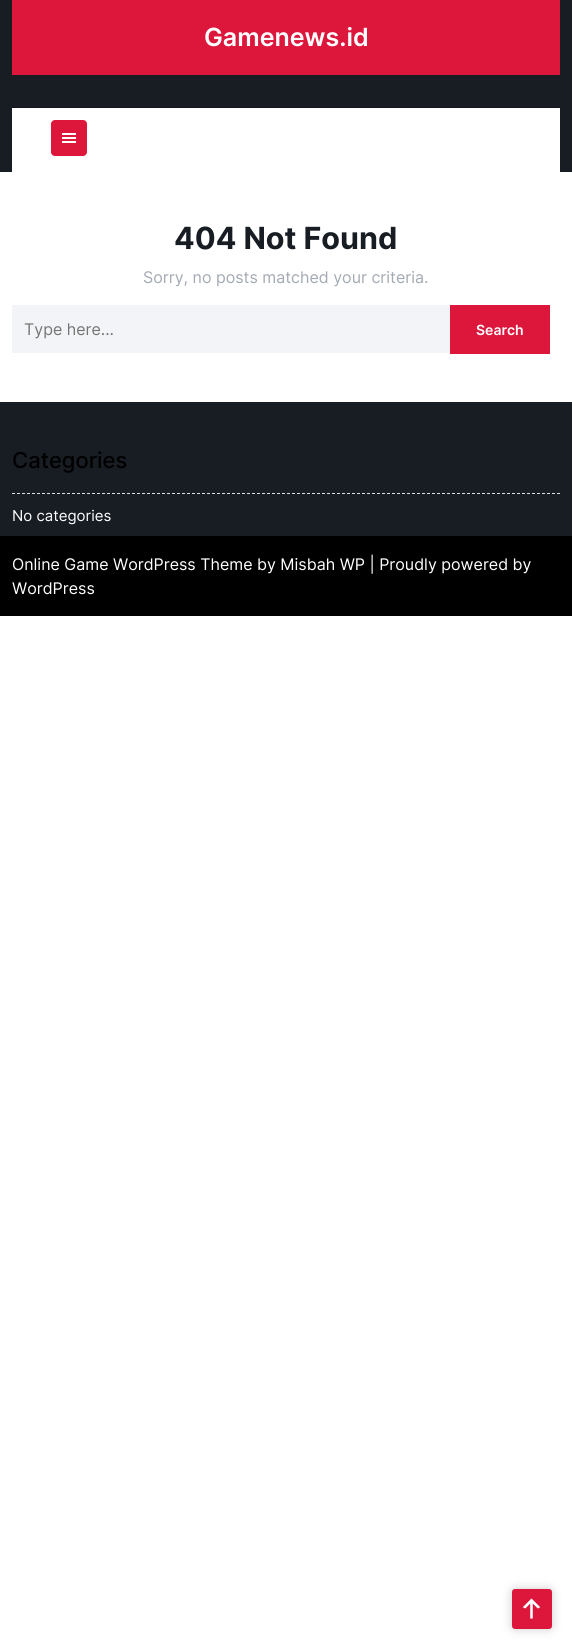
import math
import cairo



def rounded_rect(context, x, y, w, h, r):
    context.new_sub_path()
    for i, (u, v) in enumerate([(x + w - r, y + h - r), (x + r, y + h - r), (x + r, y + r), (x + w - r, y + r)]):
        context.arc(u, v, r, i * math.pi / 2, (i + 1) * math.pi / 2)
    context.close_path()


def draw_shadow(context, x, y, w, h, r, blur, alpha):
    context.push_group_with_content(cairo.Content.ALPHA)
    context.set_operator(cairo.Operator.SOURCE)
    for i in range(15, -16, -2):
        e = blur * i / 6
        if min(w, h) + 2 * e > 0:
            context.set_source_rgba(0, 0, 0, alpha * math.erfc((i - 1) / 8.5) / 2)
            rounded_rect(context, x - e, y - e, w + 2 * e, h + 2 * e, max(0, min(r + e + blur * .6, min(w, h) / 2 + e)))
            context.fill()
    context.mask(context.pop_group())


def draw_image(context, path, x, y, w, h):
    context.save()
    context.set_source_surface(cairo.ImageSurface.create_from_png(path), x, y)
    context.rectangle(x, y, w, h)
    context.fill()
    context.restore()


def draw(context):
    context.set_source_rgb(1, 1, 1)
    context.paint()
    context.set_source_rgb(24 / 255, 28 / 255, 35 / 255)
    context.rectangle(0, 0, 572, 172)
    context.fill()
    context.set_source_rgb(221 / 255, 22 / 255, 59 / 255)
    context.rectangle(12, 0, 548, 75)
    context.fill()
    context.set_source_rgb(21 / 255, 21 / 255, 31 / 255)
    context.rectangle(12, 107, 548, 1)
    context.fill()
    context.set_source_rgb(1, 1, 1)
    context.rectangle(12, 108, 548, 64)
    context.fill()
    context.set_source_rgb(221 / 255, 22 / 255, 59 / 255)
    rounded_rect(context, 51, 120, 36, 36, 4)
    context.fill()
    draw_image(context, "images/1.png", 62, 133, 14, 10)
    context.set_source_rgb(243 / 255, 244 / 255, 247 / 255)
    context.rectangle(12, 305, 438, 48)
    context.fill()
    context.set_source_rgb(221 / 255, 22 / 255, 59 / 255)
    context.rectangle(450, 305, 100, 49)
    context.fill()
    context.set_source_rgb(24 / 255, 28 / 255, 35 / 255)
    context.rectangle(0, 402, 572, 134)
    context.fill()
    context.new_path()
    context.move_to(12, 493.5)
    context.line_to(560, 493.5)
    context.set_source_rgb(223 / 255, 224 / 255, 228 / 255)
    context.set_line_width(1)
    context.set_dash([3, 2])
    context.stroke()
    context.set_source_rgb(0, 0, 0)
    context.rectangle(0, 536, 572, 80)
    context.fill()
    context.set_source_rgb(0, 0, 0)
    draw_shadow(context, 512, 1589, 40, 40, 3, 5, 0.2)
    context.set_source_rgb(221 / 255, 22 / 255, 59 / 255)
    rounded_rect(context, 512, 1589, 40, 40, 3)
    context.fill()
    draw_image(context, "images/2.png", 522, 1598, 19, 21)
    context.select_font_face("Inter SemiBold")
    context.set_font_size(25)
    context.set_source_rgb(1, 1, 1)
    context.move_to(204, 46)
    context.show_text("Gamenews.id")
    context.select_font_face("Inter", cairo.FontSlant.NORMAL, cairo.FontWeight.BOLD)
    context.set_font_size(30.5)
    context.set_source_rgb(24 / 255, 28 / 255, 35 / 255)
    context.move_to(174, 249)
    context.show_text("404 Not Found")
    context.select_font_face("Inter")
    context.set_font_size(16)
    context.set_source_rgb(163 / 255, 170 / 255, 180 / 255)
    context.move_to(143, 283)
    context.show_text("Sorry, no posts matched your criteria.")
    context.set_source_rgb(117 / 255, 117 / 255, 117 / 255)
    context.move_to(24, 335)
    context.show_text("Type here...")
    context.select_font_face("Inter SemiBold")
    context.set_font_size(14)
    context.set_source_rgb(1, 1, 1)
    context.move_to(476, 335)
    context.show_text("Search")
    context.select_font_face("Inter Medium")
    context.set_font_size(22)
    context.set_source_rgb(0, 0, 0)
    context.move_to(12, 468)
    context.show_text("Categories")
    context.select_font_face("Inter")
    context.set_font_size(15)
    context.set_source_rgb(1, 1, 1)
    context.move_to(12, 521)
    context.show_text("No categories")
    context.set_font_size(16)
    context.move_to(12, 570)
    context.show_text("Online Game WordPress Theme by Misbah WP | Proudly powered by")
    context.move_to(12, 594)
    context.show_text("WordPress")


surface = cairo.ImageSurface(cairo.Format.RGB24, 572, 1641)
context = cairo.Context(surface)
options = cairo.FontOptions()
options.set_hint_metrics(cairo.HintMetrics.OFF)
options.set_hint_style(cairo.HintStyle.NONE)
context.set_font_options(options)
context.set_miter_limit(4)
draw(context)
surface.write_to_png("out.png")
